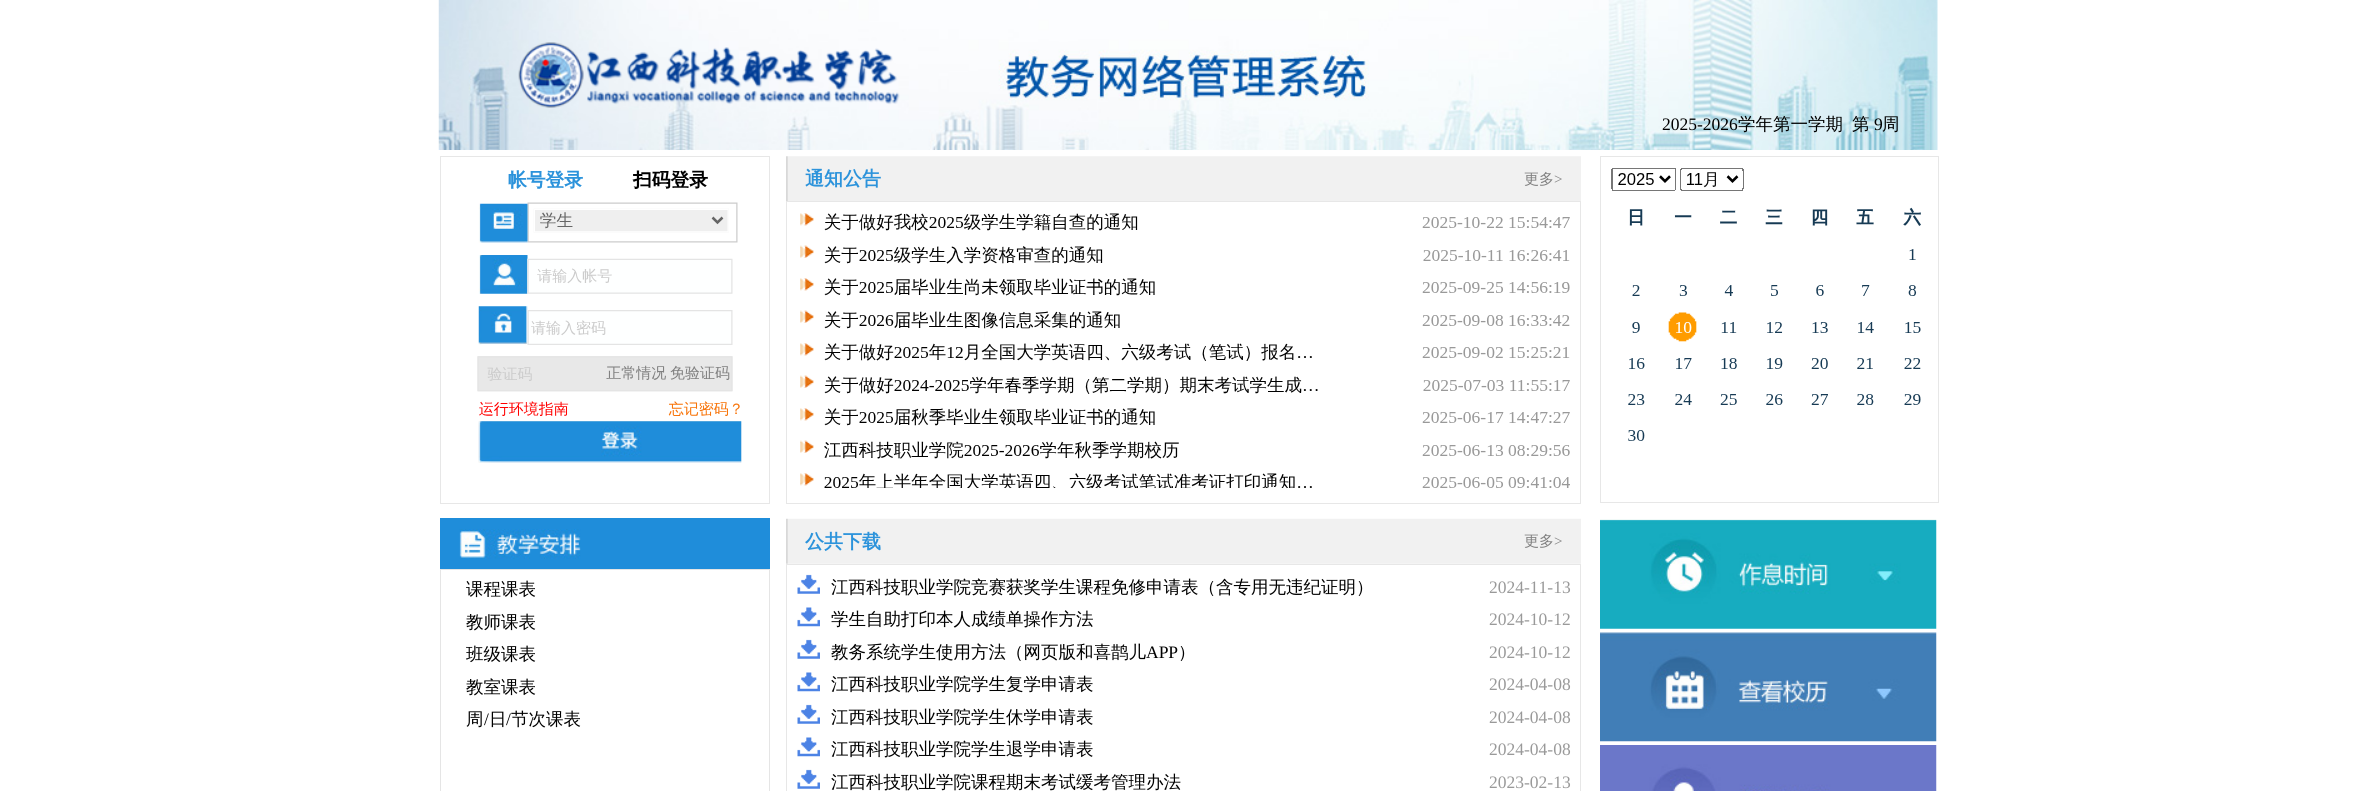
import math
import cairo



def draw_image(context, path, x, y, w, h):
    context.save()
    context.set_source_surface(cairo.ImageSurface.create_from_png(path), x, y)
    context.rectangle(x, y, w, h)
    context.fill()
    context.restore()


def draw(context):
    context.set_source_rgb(1, 1, 1)
    context.paint()
    draw_image(context, "images/1.png", 438, 0, 1500, 150)
    draw_image(context, "images/2.png", 518, 42, 382, 66)
    context.rectangle(440.5, 156.5, 329, 347)
    context.set_source_rgb(231 / 255, 231 / 255, 231 / 255)
    context.set_line_width(1)
    context.stroke()
    draw_image(context, "images/3.png", 477, 170, 265, 293)
    context.set_source_rgb(31 / 255, 141 / 255, 218 / 255)
    context.rectangle(440, 518, 330, 51)
    context.fill()
    draw_image(context, "images/4.png", 459, 529, 122, 30)
    context.rectangle(440.5, 569.5, 329, 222)
    context.set_source_rgb(229 / 255, 229 / 255, 229 / 255)
    context.stroke()
    draw_image(context, "images/5.png", 786, 156, 795, 45)
    context.rectangle(786.5, 201.5, 794, 302)
    context.set_source_rgb(231 / 255, 231 / 255, 231 / 255)
    context.stroke()
    draw_image(context, "images/6.png", 800, 213, 770, 275)
    draw_image(context, "images/7.png", 786, 518, 795, 46)
    context.rectangle(786.5, 564.5, 794, 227)
    context.stroke()
    draw_image(context, "images/8.png", 797, 574, 23, 20)
    draw_image(context, "images/9.png", 797, 607, 23, 20)
    draw_image(context, "images/8.png", 797, 639, 23, 20)
    draw_image(context, "images/9.png", 797, 672, 23, 20)
    draw_image(context, "images/8.png", 797, 704, 23, 20)
    draw_image(context, "images/9.png", 797, 737, 23, 20)
    draw_image(context, "images/8.png", 797, 769, 23, 20)
    context.rectangle(1600.5, 156.5, 338, 346)
    context.stroke()
    draw_image(context, "images/10.png", 1611, 168, 310, 273)
    draw_image(context, "images/11.png", 1600, 519, 337, 110)
    draw_image(context, "images/12.png", 1600, 632, 337, 110)
    draw_image(context, "images/13.png", 1600, 745, 337, 46)
    context.select_font_face("Liberation Serif")
    context.set_font_size(17.5)
    context.set_source_rgb(0, 0, 0)
    context.move_to(1662, 130)
    context.show_text("2025-2026")
    context.select_font_face("WenQuanYi Zen Hei Medium")
    context.move_to(1738, 130)
    context.show_text("学年第一学期")
    context.move_to(1852, 130)
    context.show_text("第")
    context.select_font_face("Liberation Serif")
    context.move_to(1874, 130)
    context.show_text("9")
    context.select_font_face("WenQuanYi Zen Hei Medium")
    context.move_to(1882, 130)
    context.show_text("周")
    context.move_to(466, 595)
    context.show_text("课程课表")
    context.move_to(466, 628)
    context.show_text("教师课表")
    context.move_to(466, 660)
    context.show_text("班级课表")
    context.move_to(466, 693)
    context.show_text("教室课表")
    context.move_to(466, 725)
    context.show_text("周")
    context.select_font_face("Liberation Serif")
    context.move_to(484, 725)
    context.show_text("/")
    context.select_font_face("WenQuanYi Zen Hei Medium")
    context.move_to(489, 725)
    context.show_text("日")
    context.select_font_face("Liberation Serif")
    context.move_to(506, 725)
    context.show_text("/")
    context.select_font_face("WenQuanYi Zen Hei Medium")
    context.move_to(511, 725)
    context.show_text("节次课表")
    context.select_font_face("WenQuanYi Zen Hei", cairo.FontSlant.NORMAL, cairo.FontWeight.BOLD)
    context.set_font_size(19)
    context.set_source_rgb(44 / 255, 147 / 255, 219 / 255)
    context.move_to(805, 185)
    context.show_text("通知公告")
    context.select_font_face("WenQuanYi Zen Hei Medium")
    context.set_font_size(15)
    context.set_source_rgb(128 / 255, 128 / 255, 128 / 255)
    context.move_to(1524, 184)
    context.show_text("更多")
    context.select_font_face("Liberation Serif")
    context.move_to(1554, 184)
    context.show_text(">")
    context.select_font_face("WenQuanYi Zen Hei", cairo.FontSlant.NORMAL, cairo.FontWeight.BOLD)
    context.set_font_size(19)
    context.set_source_rgb(44 / 255, 147 / 255, 219 / 255)
    context.move_to(805, 548)
    context.show_text("公共下载")
    context.select_font_face("WenQuanYi Zen Hei Medium")
    context.set_font_size(15)
    context.set_source_rgb(128 / 255, 128 / 255, 128 / 255)
    context.move_to(1524, 546)
    context.show_text("更多")
    context.select_font_face("Liberation Serif")
    context.move_to(1554, 546)
    context.show_text(">")
    context.select_font_face("WenQuanYi Zen Hei Medium")
    context.set_font_size(17.5)
    context.set_source_rgb(0, 0, 0)
    context.move_to(831, 593)
    context.show_text("江西科技职业学院竞赛获奖学生课程免修申请表（含专用无违纪证明）")
    context.select_font_face("Liberation Serif")
    context.set_source_rgb(153 / 255, 153 / 255, 153 / 255)
    context.move_to(1489, 593)
    context.show_text("2024-11-13")
    context.select_font_face("WenQuanYi Zen Hei Medium")
    context.set_source_rgb(0, 0, 0)
    context.move_to(831, 625)
    context.show_text("学生自助打印本人成绩单操作方法")
    context.select_font_face("Liberation Serif")
    context.set_source_rgb(153 / 255, 153 / 255, 153 / 255)
    context.move_to(1489, 625)
    context.show_text("2024-10-12")
    context.select_font_face("WenQuanYi Zen Hei Medium")
    context.set_source_rgb(0, 0, 0)
    context.move_to(831, 658)
    context.show_text("教务系统学生使用方法（网页版和喜鹊儿")
    context.select_font_face("Liberation Serif")
    context.move_to(1146, 658)
    context.show_text("APP")
    context.select_font_face("WenQuanYi Zen Hei Medium")
    context.move_to(1178, 658)
    context.show_text("）")
    context.select_font_face("Liberation Serif")
    context.set_source_rgb(153 / 255, 153 / 255, 153 / 255)
    context.move_to(1489, 658)
    context.show_text("2024-10-12")
    context.select_font_face("WenQuanYi Zen Hei Medium")
    context.set_source_rgb(0, 0, 0)
    context.move_to(831, 690)
    context.show_text("江西科技职业学院学生复学申请表")
    context.select_font_face("Liberation Serif")
    context.set_source_rgb(153 / 255, 153 / 255, 153 / 255)
    context.move_to(1489, 690)
    context.show_text("2024-04-08")
    context.select_font_face("WenQuanYi Zen Hei Medium")
    context.set_source_rgb(0, 0, 0)
    context.move_to(831, 723)
    context.show_text("江西科技职业学院学生休学申请表")
    context.select_font_face("Liberation Serif")
    context.set_source_rgb(153 / 255, 153 / 255, 153 / 255)
    context.move_to(1489, 723)
    context.show_text("2024-04-08")
    context.select_font_face("WenQuanYi Zen Hei Medium")
    context.set_source_rgb(0, 0, 0)
    context.move_to(831, 755)
    context.show_text("江西科技职业学院学生退学申请表")
    context.select_font_face("Liberation Serif")
    context.set_source_rgb(153 / 255, 153 / 255, 153 / 255)
    context.move_to(1489, 755)
    context.show_text("2024-04-08")
    context.select_font_face("WenQuanYi Zen Hei Medium")
    context.set_source_rgb(0, 0, 0)
    context.move_to(831, 788)
    context.show_text("江西科技职业学院课程期末考试缓考管理办法")
    context.select_font_face("Liberation Serif")
    context.set_source_rgb(153 / 255, 153 / 255, 153 / 255)
    context.move_to(1489, 788)
    context.show_text("2023-02-13")


surface = cairo.ImageSurface(cairo.Format.RGB24, 2376, 791)
context = cairo.Context(surface)
options = cairo.FontOptions()
options.set_hint_metrics(cairo.HintMetrics.OFF)
options.set_hint_style(cairo.HintStyle.NONE)
context.set_font_options(options)
context.set_miter_limit(4)
draw(context)
surface.write_to_png("out.png")
